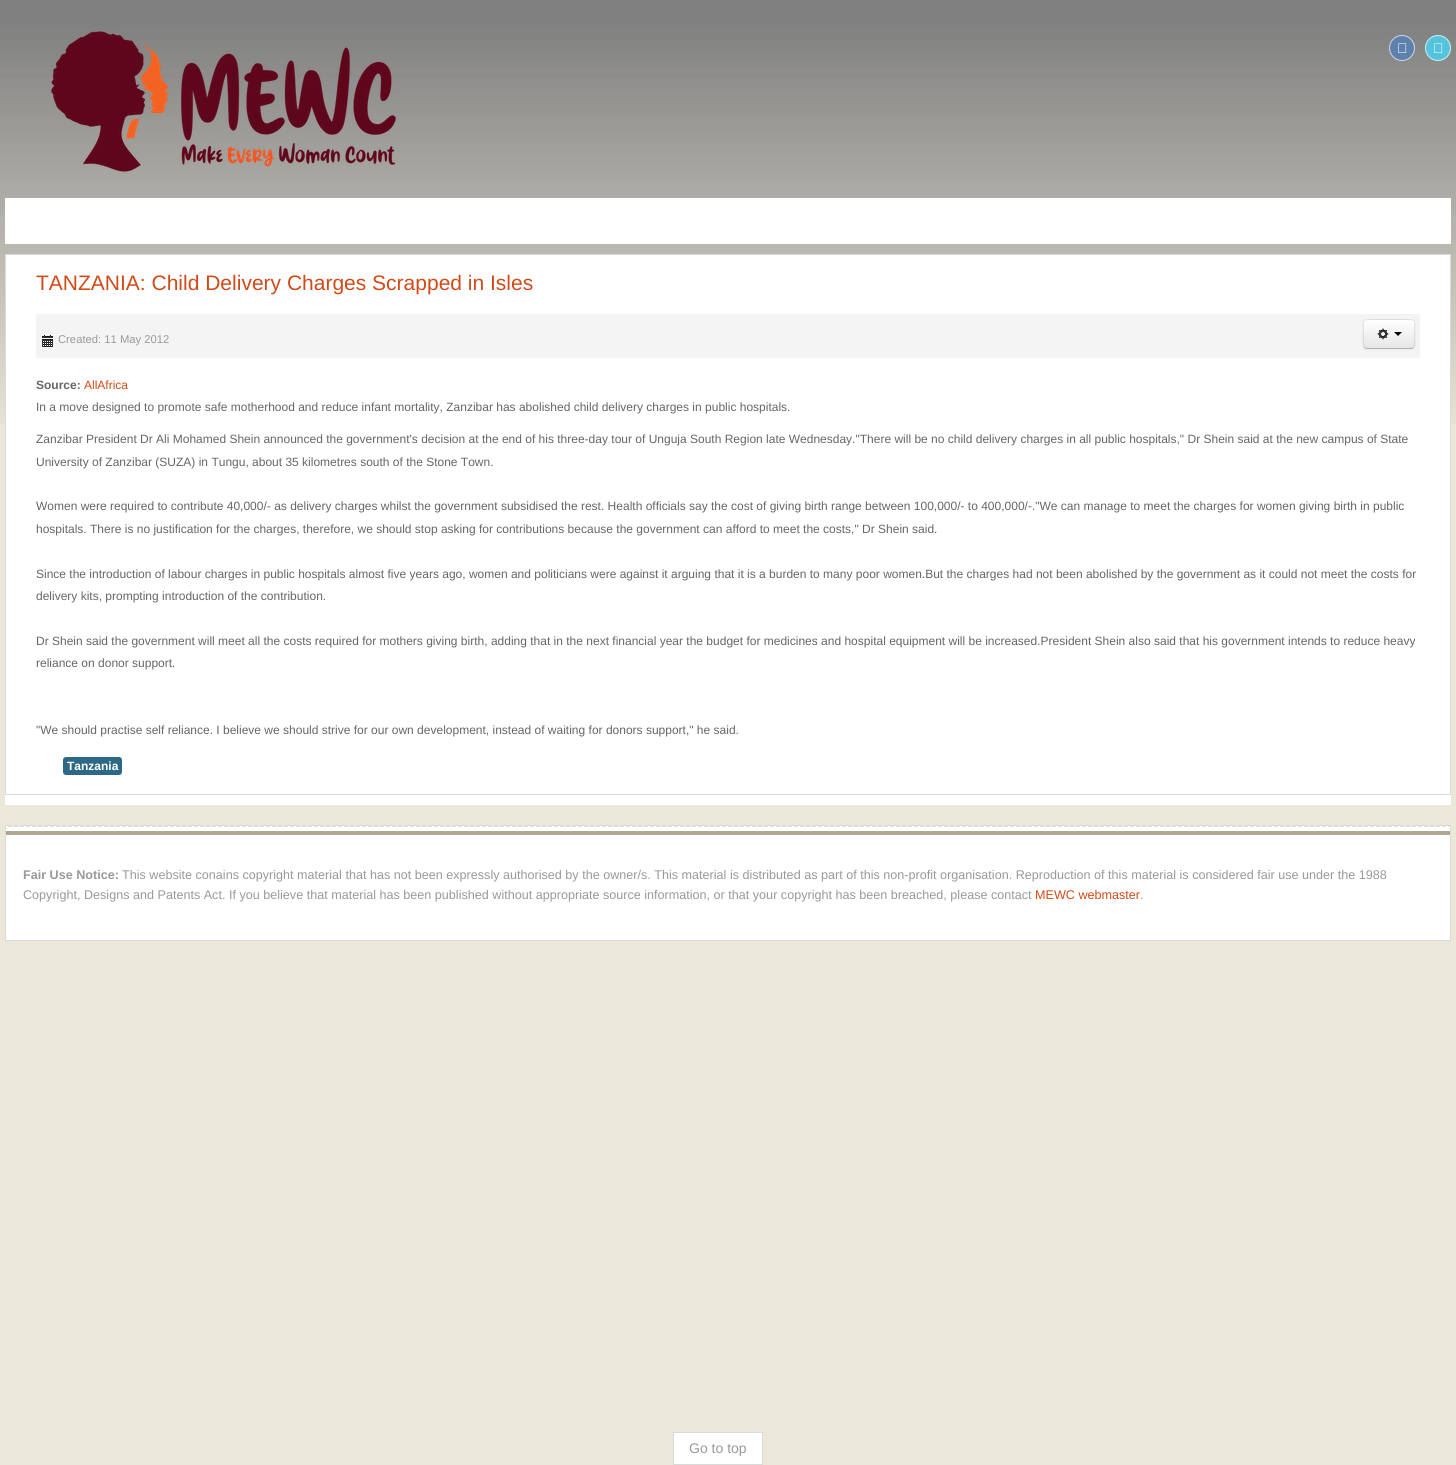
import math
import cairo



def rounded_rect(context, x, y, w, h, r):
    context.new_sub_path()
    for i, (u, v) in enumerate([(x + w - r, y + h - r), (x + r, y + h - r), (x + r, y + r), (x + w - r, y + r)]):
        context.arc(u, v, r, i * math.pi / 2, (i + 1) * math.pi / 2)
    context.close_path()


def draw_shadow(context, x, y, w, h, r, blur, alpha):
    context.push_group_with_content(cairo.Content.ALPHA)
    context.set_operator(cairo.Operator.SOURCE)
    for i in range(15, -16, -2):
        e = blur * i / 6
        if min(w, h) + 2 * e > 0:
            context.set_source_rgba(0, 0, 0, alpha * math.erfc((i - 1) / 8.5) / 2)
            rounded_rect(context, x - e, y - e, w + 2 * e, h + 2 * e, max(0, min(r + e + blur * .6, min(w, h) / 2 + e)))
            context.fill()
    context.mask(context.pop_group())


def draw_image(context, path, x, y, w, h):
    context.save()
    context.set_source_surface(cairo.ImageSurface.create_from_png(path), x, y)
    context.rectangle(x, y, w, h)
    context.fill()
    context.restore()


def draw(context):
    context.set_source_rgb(235 / 255, 232 / 255, 217 / 255)
    context.paint()
    draw_image(context, "images/1.png", 0, 0, 1456, 424)
    draw_image(context, "images/2.png", 51, 31, 347, 143)
    context.set_source_rgb(93 / 255, 128 / 255, 172 / 255)
    context.arc(1402, 48, 13, 0, 2 * math.pi)
    context.fill()
    context.arc(1402, 48, 12.5, 0, 2 * math.pi)
    context.set_source_rgba(1, 1, 1, 0.7)
    context.set_line_width(1)
    context.stroke()
    draw_image(context, "images/3.png", 1398, 43, 9, 10)
    context.set_source_rgb(85 / 255, 195 / 255, 219 / 255)
    context.arc(1438, 48, 13, 0, 2 * math.pi)
    context.fill()
    context.arc(1438, 48, 12.5, 0, 2 * math.pi)
    context.set_source_rgba(1, 1, 1, 0.7)
    context.stroke()
    draw_image(context, "images/4.png", 1434, 43, 9, 10)
    context.set_source_rgb(1, 1, 1)
    context.rectangle(5, 198, 1446, 46)
    context.fill()
    context.rectangle(5, 255, 1446, 550)
    context.fill()
    context.rectangle(5.5, 254.5, 1445, 540)
    context.set_source_rgb(218 / 255, 218 / 255, 218 / 255)
    context.stroke()
    context.set_source_rgb(244 / 255, 244 / 255, 244 / 255)
    context.rectangle(36, 314, 1384, 44)
    context.fill()
    draw_image(context, "images/5.png", 42, 335, 11, 12)
    context.set_source_rgb(0, 0, 0)
    draw_shadow(context, 1363, 320, 52, 30, 4, 1, 0.05)
    context.set_source_rgb(245 / 255, 245 / 255, 245 / 255)
    rounded_rect(context, 1363, 319, 52, 30, 4)
    context.fill()
    context.save()
    rounded_rect(context, 1363, 319, 52, 30, 4)
    context.clip()
    gradient = cairo.LinearGradient(1389, 320, 1389, 348)
    gradient.add_color_stop_rgba(0, 1, 1, 1, 1)
    gradient.add_color_stop_rgba(1, 230 / 255, 230 / 255, 230 / 255, 1)
    context.set_source(gradient)
    context.rectangle(1363, 320, 52, 28)
    context.fill()
    context.restore()
    context.set_source_rgb(1, 1, 1)
    context.new_path()
    context.move_to(1367, 321)
    context.line_to(1411, 321)
    context.curve_to(1413, 321, 1414, 322, 1414, 324)
    context.curve_to(1414, 318, 1408, 320, 1404, 320)
    context.line_to(1374, 320)
    context.curve_to(1370, 320, 1364, 318, 1364, 324)
    context.curve_to(1364, 322, 1365, 321, 1367, 321)
    context.close_path()
    context.fill()
    context.new_path()
    context.move_to(1413.5, 347.5)
    context.curve_to(1413, 348, 1412, 348.5, 1411, 348.5)
    context.line_to(1367, 348.5)
    context.curve_to(1366, 348.5, 1365, 348, 1364.5, 347.5)
    context.set_source_rgb(179 / 255, 179 / 255, 179 / 255)
    context.stroke()
    context.new_path()
    context.move_to(1364.5, 347.5)
    context.curve_to(1362.5, 345.5, 1363.5, 337, 1363.5, 334)
    context.curve_to(1363.5, 319.5, 1360.5, 319.5, 1374.5, 319.5)
    context.line_to(1403.5, 319.5)
    context.curve_to(1417.5, 319.5, 1414.5, 319.5, 1414.5, 334)
    context.curve_to(1414.5, 337, 1415.5, 345.5, 1413.5, 347.5)
    context.set_source_rgba(0, 0, 0, 0.1)
    context.stroke()
    draw_image(context, "images/6.png", 1377, 328, 12, 12)
    context.set_source_rgb(0, 0, 0)
    context.new_path()
    context.move_to(1394, 332)
    context.line_to(1402, 332)
    context.line_to(1398, 336)
    context.close_path()
    context.fill()
    context.set_source_rgb(45 / 255, 105 / 255, 135 / 255)
    rounded_rect(context, 63, 757, 59, 18, 3)
    context.fill()
    context.set_source_rgb(1, 1, 1)
    context.rectangle(6, 827, 1444, 113)
    context.fill()
    draw_image(context, "images/7.png", 6, 826, 1444, 1)
    context.rectangle(5.5, 825.5, 1445, 115)
    context.set_source_rgb(218 / 255, 218 / 255, 218 / 255)
    context.stroke()
    context.set_source_rgb(176 / 255, 168 / 255, 142 / 255)
    context.rectangle(6, 831, 1444, 4)
    context.fill()
    context.set_source_rgb(1, 1, 1)
    context.rectangle(673.5, 1432.5, 89, 32)
    context.fill_preserve()
    context.set_source_rgb(218 / 255, 218 / 255, 218 / 255)
    context.stroke()
    context.select_font_face("Liberation Sans")
    context.set_font_size(21)
    context.set_source_rgb(210 / 255, 74 / 255, 23 / 255)
    context.move_to(36, 290)
    context.show_text("TANZANIA: Child Delivery Charges Scrapped in Isles")
    context.set_font_size(11.25)
    context.set_source_rgb(153 / 255, 153 / 255, 153 / 255)
    context.move_to(58, 343)
    context.show_text("Created: 11 May 2012")
    context.select_font_face("Liberation Sans", cairo.FontSlant.NORMAL, cairo.FontWeight.BOLD)
    context.set_font_size(12)
    context.set_source_rgb(102 / 255, 102 / 255, 102 / 255)
    context.move_to(36, 389)
    context.show_text("Source:")
    context.select_font_face("Liberation Sans")
    context.set_source_rgb(210 / 255, 74 / 255, 23 / 255)
    context.move_to(84, 389)
    context.show_text("AllAfrica")
    context.set_source_rgb(102 / 255, 102 / 255, 102 / 255)
    context.move_to(36, 411)
    context.show_text("In a move designed to promote safe motherhood and reduce infant mortality, Zanzibar has abolished child delivery charges in public hospitals.")
    context.move_to(36, 443)
    context.show_text("Zanzibar President Dr Ali Mohamed Shein announced the government's decision at the end of his three-day tour of Unguja South Region late Wednesday.\"There will be no child delivery charges in all public hospitals,\" Dr Shein said at the new campus of State")
    context.move_to(36, 466)
    context.show_text("University of Zanzibar (SUZA) in Tungu, about 35 kilometres south of the Stone Town.")
    context.move_to(36, 510)
    context.show_text("Women were required to contribute 40,000/- as delivery charges whilst the government subsidised the rest. Health officials say the cost of giving birth range between 100,000/- to 400,000/-.\"We can manage to meet the charges for women giving birth in public")
    context.move_to(36, 533)
    context.show_text("hospitals. There is no justification for the charges, therefore, we should stop asking for contributions because the government can afford to meet the costs,\" Dr Shein said.")
    context.move_to(36, 578)
    context.show_text("Since the introduction of labour charges in public hospitals almost five years ago, women and politicians were against it arguing that it is a burden to many poor women.But the charges had not been abolished by the government as it could not meet the costs for")
    context.move_to(36, 600)
    context.show_text("delivery kits, prompting introduction of the contribution.")
    context.move_to(36, 645)
    context.show_text("Dr Shein said the government will meet all the costs required for mothers giving birth, adding that in the next financial year the budget for medicines and hospital equipment will be increased.President Shein also said that his government intends to reduce heavy")
    context.move_to(36, 667)
    context.show_text("reliance on donor support.")
    context.move_to(36, 734)
    context.show_text("\"We should practise self reliance. I believe we should strive for our own development, instead of waiting for donors support,\" he said.")
    context.select_font_face("Liberation Sans", cairo.FontSlant.NORMAL, cairo.FontWeight.BOLD)
    context.set_source_rgb(1, 1, 1)
    context.move_to(67, 770)
    context.show_text("Tanzania")
    context.set_font_size(12.6)
    context.set_source_rgb(153 / 255, 153 / 255, 153 / 255)
    context.move_to(23, 879)
    context.show_text("Fair Use Notice:")
    context.select_font_face("Liberation Sans")
    context.move_to(122, 879)
    context.show_text("This website conains copyright material that has not been expressly authorised by the owner/s. This material is distributed as part of this non-profit organisation. Reproduction of this material is considered fair use under the 1988")
    context.move_to(23, 899)
    context.show_text("Copyright, Designs and Patents Act. If you believe that material has been published without appropriate source information, or that your copyright has been breached, please contact")
    context.set_source_rgb(210 / 255, 74 / 255, 23 / 255)
    context.move_to(1035, 899)
    context.show_text("MEWC webmaster")
    context.set_source_rgb(153 / 255, 153 / 255, 153 / 255)
    context.move_to(1140, 899)
    context.show_text(".")
    context.set_font_size(14)
    context.move_to(689, 1453)
    context.show_text("Go to top")


surface = cairo.ImageSurface(cairo.Format.RGB24, 1456, 1465)
context = cairo.Context(surface)
options = cairo.FontOptions()
options.set_hint_metrics(cairo.HintMetrics.OFF)
options.set_hint_style(cairo.HintStyle.NONE)
context.set_font_options(options)
context.set_miter_limit(4)
draw(context)
surface.write_to_png("out.png")
